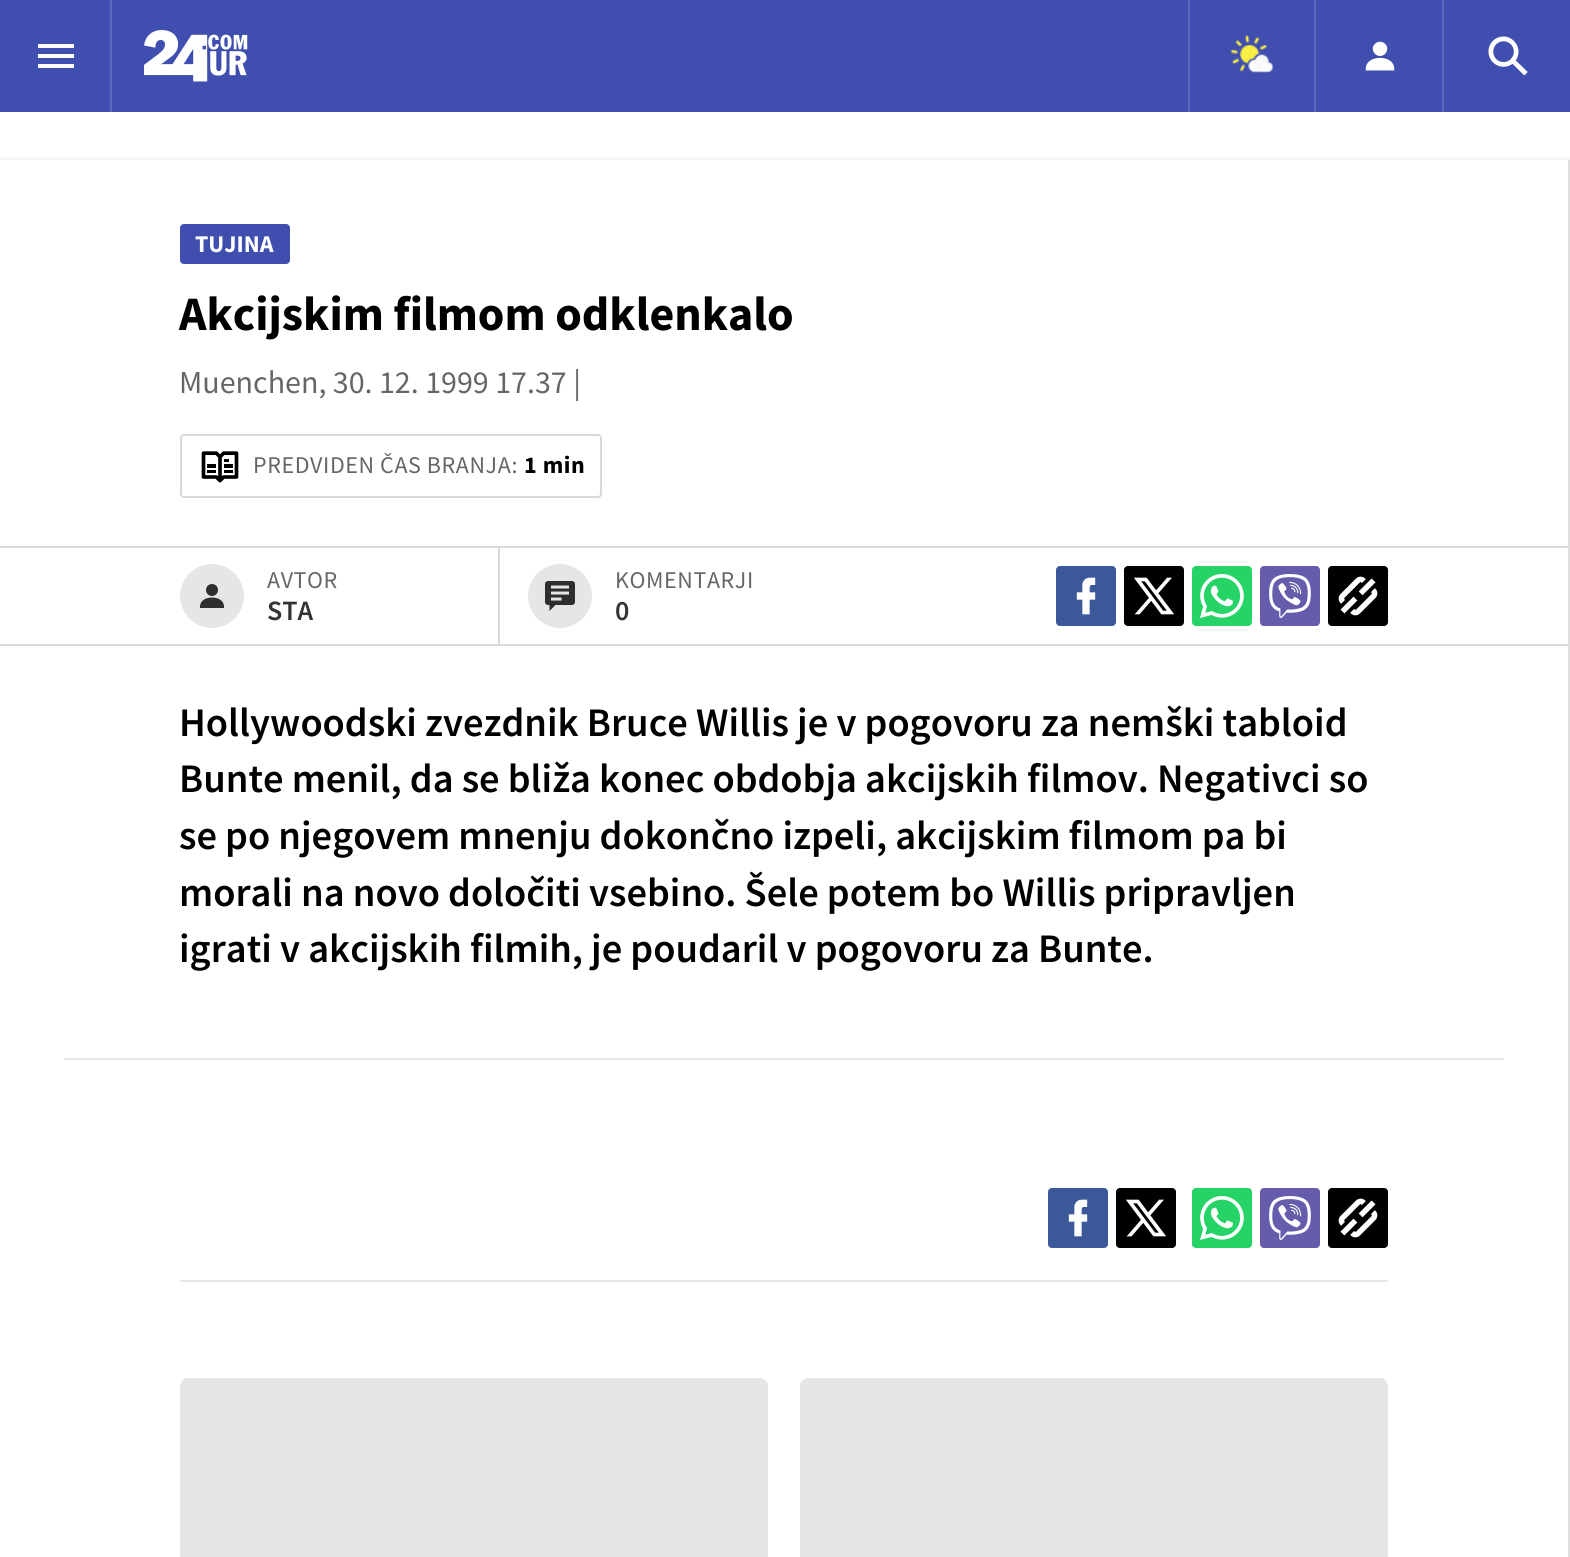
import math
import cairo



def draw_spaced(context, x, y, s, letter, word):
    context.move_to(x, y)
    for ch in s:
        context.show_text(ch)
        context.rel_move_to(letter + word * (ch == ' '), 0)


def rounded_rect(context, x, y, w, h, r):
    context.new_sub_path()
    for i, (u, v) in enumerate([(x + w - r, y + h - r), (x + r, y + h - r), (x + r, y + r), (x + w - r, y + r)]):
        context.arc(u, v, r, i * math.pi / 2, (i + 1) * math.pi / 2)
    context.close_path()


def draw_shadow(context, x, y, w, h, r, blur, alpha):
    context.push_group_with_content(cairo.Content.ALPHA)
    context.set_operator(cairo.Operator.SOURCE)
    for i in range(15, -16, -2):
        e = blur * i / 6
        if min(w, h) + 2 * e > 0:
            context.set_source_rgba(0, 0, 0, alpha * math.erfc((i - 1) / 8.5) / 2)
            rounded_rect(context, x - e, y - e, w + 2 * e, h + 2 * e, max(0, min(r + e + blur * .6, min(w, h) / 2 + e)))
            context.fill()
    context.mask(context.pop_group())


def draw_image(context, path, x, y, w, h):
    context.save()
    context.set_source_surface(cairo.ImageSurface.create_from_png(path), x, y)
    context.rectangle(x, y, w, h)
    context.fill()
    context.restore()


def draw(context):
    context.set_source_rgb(1, 1, 1)
    context.paint()
    context.set_source_rgb(64 / 255, 79 / 255, 175 / 255)
    context.rectangle(0, 0, 1570, 112)
    context.fill()
    context.set_source_rgb(93 / 255, 105 / 255, 187 / 255)
    context.rectangle(110, 0, 2, 112)
    context.fill()
    context.set_source_rgb(1, 1, 1)
    context.rectangle(38, 44, 36, 4)
    context.fill()
    context.rectangle(38, 54, 36, 4)
    context.fill()
    context.rectangle(38, 64, 36, 4)
    context.fill()
    draw_image(context, "images/1.png", 144, 30, 104, 52)
    context.set_source_rgb(93 / 255, 105 / 255, 187 / 255)
    context.rectangle(1188, 0, 2, 112)
    context.fill()
    draw_image(context, "images/2.png", 1230, 35, 44, 38)
    context.rectangle(1314, 0, 2, 112)
    context.fill()
    draw_image(context, "images/3.png", 1365, 41, 30, 30)
    context.rectangle(1442, 0, 2, 112)
    context.fill()
    draw_image(context, "images/4.png", 1488, 36, 40, 40)
    context.save()
    context.rectangle(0, 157, 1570, 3)
    context.clip()
    context.set_source_rgb(0, 0, 0)
    draw_shadow(context, 0, 162, 1570, 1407, 0, 4, 0.2)
    context.restore()
    context.set_source_rgb(222 / 255, 222 / 255, 222 / 255)
    context.rectangle(1568, 160, 2, 1397)
    context.fill()
    context.set_source_rgb(64 / 255, 79 / 255, 175 / 255)
    rounded_rect(context, 180, 224, 110, 40, 4)
    context.fill()
    rounded_rect(context, 181, 435, 420, 62, 3)
    context.set_source_rgb(217 / 255, 217 / 255, 217 / 255)
    context.stroke()
    draw_image(context, "images/5.png", 201, 451, 38, 32)
    context.rectangle(0, 546, 1568, 2)
    context.fill()
    context.rectangle(0, 644, 1568, 2)
    context.fill()
    context.rectangle(498, 548, 2, 96)
    context.fill()
    context.set_source_rgb(230 / 255, 230 / 255, 230 / 255)
    context.arc(212, 596, 32, 0, 2 * math.pi)
    context.fill()
    draw_image(context, "images/6.png", 200, 584, 24, 24)
    context.arc(560, 596, 32, 0, 2 * math.pi)
    context.fill()
    draw_image(context, "images/7.png", 545, 581, 30, 30)
    context.set_source_rgb(59 / 255, 89 / 255, 152 / 255)
    rounded_rect(context, 1056, 566, 60, 60, 4)
    context.fill()
    draw_image(context, "images/8.png", 1076, 577, 20, 38)
    context.set_source_rgb(0, 0, 0)
    rounded_rect(context, 1124, 566, 60, 60, 4)
    context.fill()
    draw_image(context, "images/9.png", 1134, 577, 40, 38)
    context.set_source_rgb(37 / 255, 211 / 255, 102 / 255)
    rounded_rect(context, 1192, 566, 60, 60, 4)
    context.fill()
    draw_image(context, "images/10.png", 1200, 574, 44, 44)
    context.set_source_rgb(102 / 255, 92 / 255, 172 / 255)
    rounded_rect(context, 1260, 566, 60, 60, 4)
    context.fill()
    draw_image(context, "images/11.png", 1269, 574, 42, 44)
    context.set_source_rgb(0, 0, 0)
    rounded_rect(context, 1328, 566, 60, 60, 4)
    context.fill()
    draw_image(context, "images/12.png", 1338, 576, 40, 40)
    context.set_source_rgb(230 / 255, 230 / 255, 230 / 255)
    context.rectangle(64, 1058, 1440, 2)
    context.fill()
    context.rectangle(180, 1280, 1208, 2)
    context.fill()
    context.set_source_rgb(59 / 255, 89 / 255, 152 / 255)
    rounded_rect(context, 1048, 1188, 60, 60, 4)
    context.fill()
    draw_image(context, "images/8.png", 1068, 1199, 20, 38)
    context.set_source_rgb(0, 0, 0)
    rounded_rect(context, 1116, 1188, 60, 60, 4)
    context.fill()
    draw_image(context, "images/9.png", 1126, 1199, 40, 38)
    context.set_source_rgb(37 / 255, 211 / 255, 102 / 255)
    rounded_rect(context, 1192, 1188, 60, 60, 4)
    context.fill()
    draw_image(context, "images/10.png", 1200, 1196, 44, 44)
    context.set_source_rgb(102 / 255, 92 / 255, 172 / 255)
    rounded_rect(context, 1260, 1188, 60, 60, 4)
    context.fill()
    draw_image(context, "images/11.png", 1269, 1196, 42, 44)
    context.set_source_rgb(0, 0, 0)
    rounded_rect(context, 1328, 1188, 60, 60, 4)
    context.fill()
    draw_image(context, "images/12.png", 1338, 1198, 40, 40)
    context.set_source_rgb(230 / 255, 230 / 255, 230 / 255)
    rounded_rect(context, 180, 1378, 588, 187, 8)
    context.fill()
    rounded_rect(context, 800, 1378, 588, 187, 8)
    context.fill()
    context.select_font_face("Source Sans Pro", cairo.FontSlant.NORMAL, cairo.FontWeight.BOLD)
    context.set_font_size(24)
    context.set_source_rgb(1, 1, 1)
    context.move_to(195, 252)
    context.show_text("TUJINA")
    context.set_font_size(48)
    context.set_source_rgb(0, 0, 0)
    context.move_to(179, 330)
    context.show_text("Akcijskim filmom odklenkalo")
    context.select_font_face("Source Sans Pro")
    context.set_font_size(32)
    context.set_source_rgb(102 / 255, 102 / 255, 102 / 255)
    context.move_to(179, 393)
    context.show_text("Muenchen, 30. 12. 1999 17.37 |")
    context.set_font_size(24)
    draw_spaced(context, 253, 473, "PREDVIDEN ČAS BRANJA:", 0.6, 0)
    context.select_font_face("Source Sans Pro", cairo.FontSlant.NORMAL, cairo.FontWeight.BOLD)
    context.set_source_rgb(0, 0, 0)
    draw_spaced(context, 524, 473, "1 min", 0.6, 0)
    context.select_font_face("Source Sans Pro")
    context.set_source_rgb(102 / 255, 102 / 255, 102 / 255)
    draw_spaced(context, 267, 588, "AVTOR", 0.6, 0)
    context.select_font_face("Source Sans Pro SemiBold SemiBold")
    context.set_font_size(28)
    context.set_source_rgb(51 / 255, 51 / 255, 51 / 255)
    context.move_to(267, 620)
    context.show_text("STA")
    context.select_font_face("Source Sans Pro")
    context.set_font_size(24)
    context.set_source_rgb(102 / 255, 102 / 255, 102 / 255)
    draw_spaced(context, 615, 588, "KOMENTARJI", 0.6, 0)
    context.select_font_face("Source Sans Pro SemiBold SemiBold")
    context.set_font_size(28)
    context.set_source_rgb(51 / 255, 51 / 255, 51 / 255)
    context.move_to(615, 620)
    context.show_text("0")
    context.set_font_size(40.5)
    context.set_source_rgb(0, 0, 0)
    context.move_to(179, 736)
    context.show_text("Hollywoodski zvezdnik Bruce Willis je v pogovoru za nemški tabloid")
    context.move_to(179, 792)
    context.show_text("Bunte menil, da se bliža konec obdobja akcijskih filmov. Negativci so")
    context.move_to(179, 849)
    context.show_text("se po njegovem mnenju dokončno izpeli, akcijskim filmom pa bi")
    context.move_to(179, 906)
    context.show_text("morali na novo določiti vsebino. Šele potem bo Willis pripravljen")
    context.move_to(179, 962)
    context.show_text("igrati v akcijskih filmih, je poudaril v pogovoru za Bunte.")


surface = cairo.ImageSurface(cairo.Format.RGB24, 1570, 1557)
context = cairo.Context(surface)
options = cairo.FontOptions()
options.set_hint_metrics(cairo.HintMetrics.OFF)
options.set_hint_style(cairo.HintStyle.NONE)
context.set_font_options(options)
context.set_miter_limit(4)
draw(context)
surface.write_to_png("out.png")
